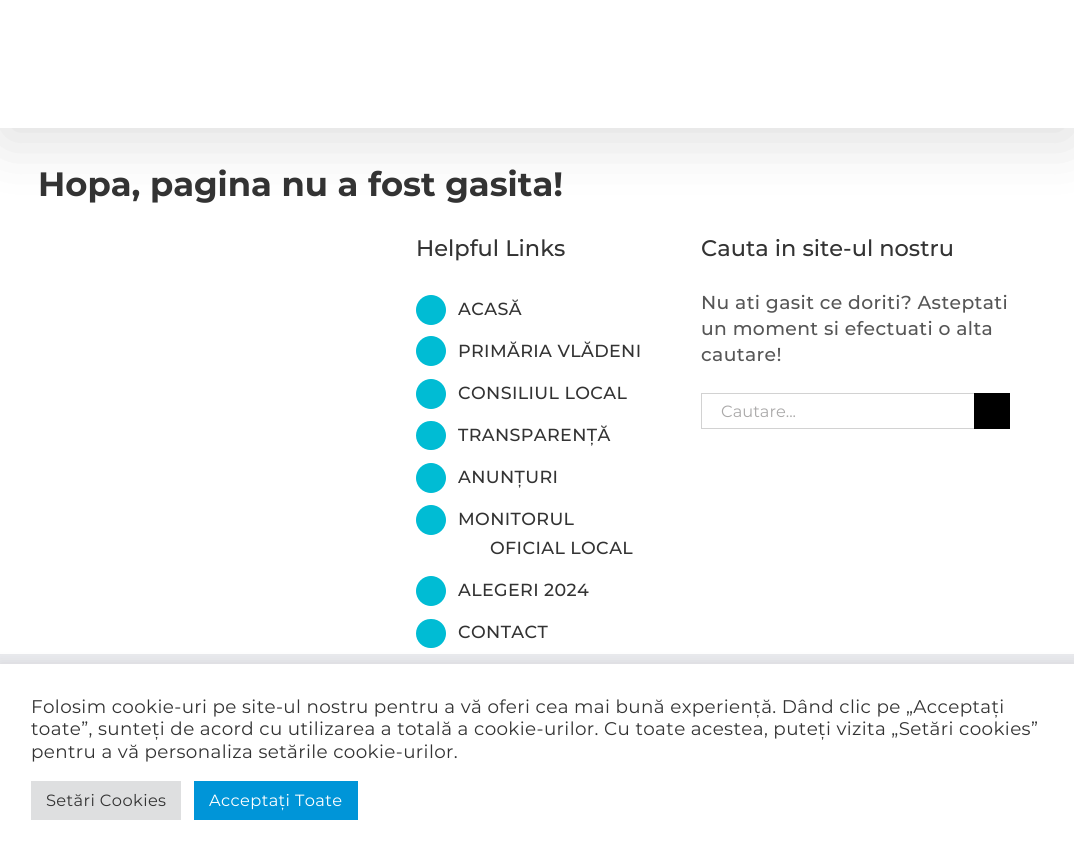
import math
import cairo



def draw_spaced(context, x, y, s, letter, word):
    context.move_to(x, y)
    for ch in s:
        context.show_text(ch)
        context.rel_move_to(letter + word * (ch == ' '), 0)


def rounded_rect(context, x, y, w, h, r):
    context.new_sub_path()
    for i, (u, v) in enumerate([(x + w - r, y + h - r), (x + r, y + h - r), (x + r, y + r), (x + w - r, y + r)]):
        context.arc(u, v, r, i * math.pi / 2, (i + 1) * math.pi / 2)
    context.close_path()


def draw_shadow(context, x, y, w, h, r, blur, alpha):
    context.push_group_with_content(cairo.Content.ALPHA)
    context.set_operator(cairo.Operator.SOURCE)
    for i in range(15, -16, -2):
        e = blur * i / 6
        if min(w, h) + 2 * e > 0:
            context.set_source_rgba(0, 0, 0, alpha * math.erfc((i - 1) / 8.5) / 2)
            rounded_rect(context, x - e, y - e, w + 2 * e, h + 2 * e, max(0, min(r + e + blur * .6, min(w, h) / 2 + e)))
            context.fill()
    context.mask(context.pop_group())


def draw(context):
    context.set_source_rgb(1, 1, 1)
    context.paint()
    context.set_source_rgb(0, 0, 0)
    draw_shadow(context, 3, 15, 1070, 123, 0, 31, 0.14)
    context.set_source_rgb(1, 1, 1)
    context.rectangle(0, 0, 1074, 128)
    context.fill()
    context.set_source_rgb(0, 188 / 255, 212 / 255)
    context.arc(431, 310, 15, 0, 2 * math.pi)
    context.fill()
    context.arc(431, 351, 15, 0, 2 * math.pi)
    context.fill()
    context.arc(431, 394, 15, 0, 2 * math.pi)
    context.fill()
    rounded_rect(context, 416, 421, 30, 29, 14.5)
    context.fill()
    context.arc(431, 478, 15, 0, 2 * math.pi)
    context.fill()
    context.arc(431, 520, 15, 0, 2 * math.pi)
    context.fill()
    context.arc(431, 591, 15, 0, 2 * math.pi)
    context.fill()
    rounded_rect(context, 416, 619, 30, 29, 14.5)
    context.fill()
    context.set_source_rgb(210 / 255, 210 / 255, 210 / 255)
    context.rectangle(701, 393, 273, 1)
    context.fill()
    context.rectangle(701, 428, 273, 1)
    context.fill()
    context.rectangle(701, 393, 1, 36)
    context.fill()
    context.set_source_rgb(0, 0, 0)
    context.rectangle(974, 393, 36, 36)
    context.fill()
    context.set_source_rgb(233 / 255, 234 / 255, 238 / 255)
    context.rectangle(0, 654, 1074, 10)
    context.fill()
    context.set_source_rgb(172 / 255, 171 / 255, 171 / 255)
    draw_shadow(context, 0, 663, 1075, 193, 0, 6, 0.3)
    context.set_source_rgb(1, 1, 1)
    context.rectangle(0, 664, 1074, 193)
    context.fill()
    context.set_source_rgb(222 / 255, 223 / 255, 224 / 255)
    context.rectangle(31, 781, 150, 39)
    context.fill()
    context.set_source_rgb(0, 149 / 255, 216 / 255)
    context.rectangle(194, 781, 164, 39)
    context.fill()
    context.select_font_face("Montserrat", cairo.FontSlant.NORMAL, cairo.FontWeight.BOLD)
    context.set_font_size(33.75)
    context.set_source_rgb(51 / 255, 51 / 255, 51 / 255)
    context.move_to(38, 196)
    context.show_text("Hopa, pagina nu a fost gasita!")
    context.select_font_face("Montserrat Medium")
    context.set_font_size(22.5)
    context.move_to(416, 256)
    context.show_text("Helpful Links")
    context.set_font_size(17.5)
    draw_spaced(context, 458, 315, "ACASĂ", 0.38, 0)
    draw_spaced(context, 458, 357, "PRIMĂRIA VLĂDENI", 0.38, 0)
    draw_spaced(context, 458, 399, "CONSILIUL LOCAL", 0.38, 0)
    draw_spaced(context, 458, 441, "TRANSPARENȚĂ", 0.38, 0)
    draw_spaced(context, 458, 483, "ANUNȚURI", 0.38, 0)
    draw_spaced(context, 458, 525, "MONITORUL", 0.38, 0)
    draw_spaced(context, 490, 554, "OFICIAL LOCAL", 0.38, 0)
    draw_spaced(context, 458, 596, "ALEGERI 2024", 0.38, 0)
    draw_spaced(context, 458, 638, "CONTACT", 0.38, 0)
    context.set_font_size(22.5)
    context.move_to(701, 256)
    context.show_text("Cauta in site-ul nostru")
    context.set_font_size(18.75)
    context.set_source_rgb(86 / 255, 86 / 255, 86 / 255)
    draw_spaced(context, 701, 309, "Nu ati gasit ce doriti? Asteptati", 0.38, 0)
    draw_spaced(context, 701, 335, "un moment si efectuati o alta", 0.38, 0)
    draw_spaced(context, 701, 361, "cautare!", 0.38, 0)
    context.select_font_face("Montserrat")
    context.set_font_size(16.25)
    context.set_source_rgb(170 / 255, 169 / 255, 169 / 255)
    context.move_to(721, 417)
    context.show_text("Cautare...")
    context.set_font_size(18.33)
    context.set_source_rgb(51 / 255, 51 / 255, 51 / 255)
    draw_spaced(context, 31, 713, "Folosim cookie-uri pe site-ul nostru pentru a vă oferi cea mai bună experiență. Dând clic pe „Acceptați", 0.38, 0)
    draw_spaced(context, 31, 735, "toate”, sunteți de acord cu utilizarea a totală a cookie-urilor. Cu toate acestea, puteți vizita „Setări cookies”", 0.38, 0)
    draw_spaced(context, 31, 758, "pentru a vă personaliza setările cookie-urilor.", 0.38, 0)
    context.set_font_size(16.25)
    draw_spaced(context, 46, 806, "Setări Cookies", 0.38, 0)
    context.set_source_rgb(1, 1, 1)
    draw_spaced(context, 209, 806, "Acceptați Toate", 0.38, 0)


surface = cairo.ImageSurface(cairo.Format.RGB24, 1074, 857)
context = cairo.Context(surface)
options = cairo.FontOptions()
options.set_hint_metrics(cairo.HintMetrics.OFF)
options.set_hint_style(cairo.HintStyle.NONE)
context.set_font_options(options)
context.set_miter_limit(4)
draw(context)
surface.write_to_png("out.png")
